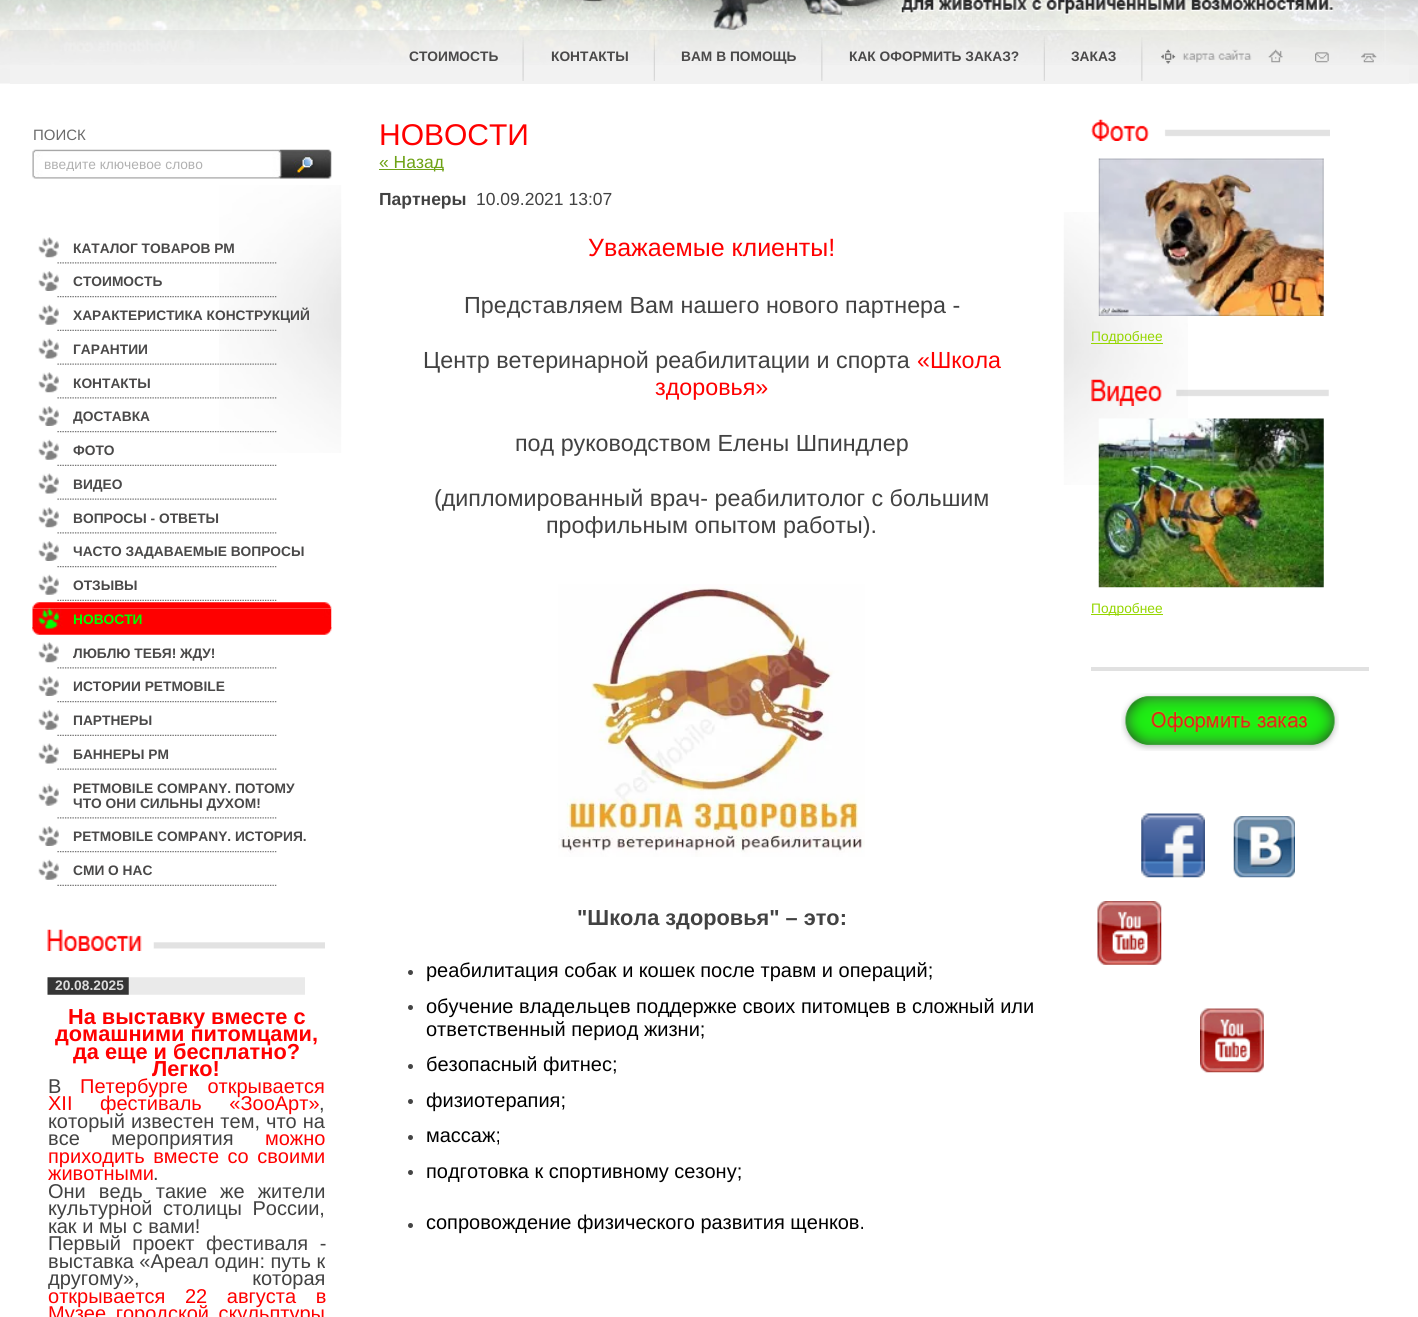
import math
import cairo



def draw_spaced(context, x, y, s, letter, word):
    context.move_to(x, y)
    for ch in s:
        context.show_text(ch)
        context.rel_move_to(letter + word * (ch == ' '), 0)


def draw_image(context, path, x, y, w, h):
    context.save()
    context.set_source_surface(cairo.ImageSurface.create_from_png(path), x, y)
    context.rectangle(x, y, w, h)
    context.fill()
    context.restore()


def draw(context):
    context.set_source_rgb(1, 1, 1)
    context.paint()
    draw_image(context, "images/1.png", 0, 0, 1418, 65)
    draw_image(context, "images/2.png", 0, 30, 10, 54)
    draw_image(context, "images/3.png", 1409, 30, 9, 54)
    context.set_source_rgba(128 / 255, 128 / 255, 128 / 255, 0.1)
    context.rectangle(10, 30, 1399, 54)
    context.fill()
    draw_image(context, "images/4.png", 522, 37, 2, 44)
    draw_image(context, "images/5.png", 653, 36, 2, 45)
    draw_image(context, "images/6.png", 821, 37, 2, 44)
    draw_image(context, "images/7.png", 1043, 36, 2, 45)
    draw_image(context, "images/8.png", 1141, 37, 2, 44)
    draw_image(context, "images/9.png", 1161, 49, 91, 15)
    draw_image(context, "images/10.png", 1268, 49, 15, 14)
    draw_image(context, "images/11.png", 1315, 52, 14, 11)
    draw_image(context, "images/12.png", 1361, 53, 16, 10)
    draw_image(context, "images/13.png", 219, 185, 123, 268)
    draw_image(context, "images/14.png", 32, 149, 300, 30)
    draw_image(context, "images/15.png", 57, 262, 220, 2)
    draw_image(context, "images/16.png", 38, 237, 21, 21)
    draw_image(context, "images/17.png", 57, 296, 220, 2)
    draw_image(context, "images/18.png", 38, 271, 21, 20)
    draw_image(context, "images/19.png", 57, 329, 220, 2)
    draw_image(context, "images/20.png", 38, 304, 21, 21)
    draw_image(context, "images/21.png", 57, 363, 220, 2)
    draw_image(context, "images/22.png", 38, 338, 21, 21)
    draw_image(context, "images/23.png", 57, 397, 220, 2)
    draw_image(context, "images/16.png", 38, 372, 21, 21)
    draw_image(context, "images/24.png", 57, 431, 220, 2)
    draw_image(context, "images/18.png", 38, 406, 21, 20)
    draw_image(context, "images/25.png", 57, 464, 220, 2)
    draw_image(context, "images/20.png", 38, 439, 21, 21)
    draw_image(context, "images/26.png", 57, 498, 220, 2)
    draw_image(context, "images/22.png", 38, 473, 21, 21)
    draw_image(context, "images/27.png", 57, 532, 220, 2)
    draw_image(context, "images/16.png", 38, 507, 21, 21)
    draw_image(context, "images/28.png", 57, 566, 220, 2)
    draw_image(context, "images/18.png", 38, 541, 21, 20)
    draw_image(context, "images/25.png", 57, 599, 220, 2)
    draw_image(context, "images/20.png", 38, 574, 21, 21)
    draw_image(context, "images/29.png", 32, 602, 300, 7)
    draw_image(context, "images/30.png", 32, 627, 300, 8)
    context.set_source_rgb(1, 0, 0)
    context.rectangle(33, 628, 298, 1)
    context.fill()
    draw_image(context, "images/31.png", 32, 608, 300, 21)
    draw_image(context, "images/27.png", 57, 667, 220, 2)
    draw_image(context, "images/16.png", 38, 642, 21, 21)
    draw_image(context, "images/28.png", 57, 701, 220, 2)
    draw_image(context, "images/32.png", 38, 676, 21, 20)
    draw_image(context, "images/25.png", 57, 734, 220, 2)
    draw_image(context, "images/20.png", 38, 709, 21, 21)
    draw_image(context, "images/26.png", 57, 768, 220, 2)
    draw_image(context, "images/22.png", 38, 743, 21, 21)
    draw_image(context, "images/27.png", 57, 817, 220, 2)
    draw_image(context, "images/33.png", 38, 783, 21, 23)
    draw_image(context, "images/28.png", 57, 851, 220, 2)
    draw_image(context, "images/18.png", 38, 826, 21, 20)
    draw_image(context, "images/25.png", 57, 884, 220, 2)
    draw_image(context, "images/20.png", 38, 859, 21, 21)
    draw_image(context, "images/34.png", 47, 929, 278, 22)
    draw_image(context, "images/35.png", 47, 977, 258, 18)
    context.set_source_rgb(110 / 255, 162 / 255, 21 / 255)
    context.rectangle(379, 169, 65, 1)
    context.fill()
    draw_image(context, "images/36.png", 558, 584, 307, 273)
    context.set_source_rgb(68 / 255, 68 / 255, 68 / 255)
    context.arc(410.5, 972.5, 2.5, 0, 2 * math.pi)
    context.fill()
    context.arc(410.5, 1007.5, 2.5, 0, 2 * math.pi)
    context.fill()
    context.arc(410.5, 1066.5, 2.5, 0, 2 * math.pi)
    context.fill()
    context.arc(410.5, 1101.5, 2.5, 0, 2 * math.pi)
    context.fill()
    context.arc(410.5, 1137.5, 2.5, 0, 2 * math.pi)
    context.fill()
    context.arc(410.5, 1172.5, 2.5, 0, 2 * math.pi)
    context.fill()
    context.arc(410.5, 1225.5, 2.5, 0, 2 * math.pi)
    context.fill()
    draw_image(context, "images/37.png", 1063, 212, 125, 273)
    draw_image(context, "images/38.png", 1091, 119, 239, 22)
    draw_image(context, "images/39.png", 1098, 158, 226, 158)
    context.set_source_rgb(149 / 255, 214 / 255, 0)
    context.rectangle(1091, 343, 72, 1)
    context.fill()
    draw_image(context, "images/40.png", 1091, 379, 238, 27)
    draw_image(context, "images/41.png", 1098, 418, 226, 170)
    context.rectangle(1091, 614, 72, 1)
    context.fill()
    context.set_source_rgb(225 / 255, 225 / 255, 225 / 255)
    context.rectangle(1091, 667, 278, 4)
    context.fill()
    draw_image(context, "images/42.png", 1121, 693, 218, 58)
    draw_image(context, "images/43.png", 1141, 813, 64, 65)
    draw_image(context, "images/44.png", 1233, 816, 62, 62)
    draw_image(context, "images/45.png", 1097, 901, 65, 64)
    draw_image(context, "images/46.png", 1200, 1008, 64, 65)
    context.select_font_face("Liberation Sans", cairo.FontSlant.NORMAL, cairo.FontWeight.BOLD)
    context.set_font_size(13.75)
    context.set_source_rgb(74 / 255, 73 / 255, 73 / 255)
    context.move_to(409, 61)
    context.show_text("СТОИМОСТЬ")
    context.move_to(551, 61)
    context.show_text("КОНТАКТЫ")
    context.move_to(681, 61)
    context.show_text("ВАМ В ПОМОЩЬ")
    context.move_to(849, 61)
    context.show_text("КАК ОФОРМИТЬ ЗАКАЗ?")
    context.move_to(1071, 61)
    context.show_text("ЗАКАЗ")
    context.select_font_face("Liberation Sans")
    context.set_font_size(15)
    context.set_source_rgb(107 / 255, 107 / 255, 107 / 255)
    context.move_to(33, 140)
    context.show_text("ПОИСК")
    context.save()
    context.rectangle(44, 156, 231, 15)
    context.clip()
    context.set_font_size(13.75)
    context.set_source_rgb(177 / 255, 177 / 255, 177 / 255)
    context.move_to(44, 169)
    context.show_text("введите ключевое слово")
    context.restore()
    context.select_font_face("Liberation Sans", cairo.FontSlant.NORMAL, cairo.FontWeight.BOLD)
    context.set_font_size(13.75)
    context.set_source_rgb(74 / 255, 73 / 255, 73 / 255)
    context.move_to(73, 253)
    context.show_text("КАТАЛОГ ТОВАРОВ PM")
    context.move_to(73, 286)
    context.show_text("СТОИМОСТЬ")
    context.move_to(73, 320)
    context.show_text("ХАРАКТЕРИСТИКА КОНСТРУКЦИЙ")
    context.move_to(73, 354)
    context.show_text("ГАРАНТИИ")
    context.move_to(73, 388)
    context.show_text("КОНТАКТЫ")
    context.move_to(73, 421)
    context.show_text("ДОСТАВКА")
    context.move_to(73, 455)
    context.show_text("ФОТО")
    context.move_to(73, 489)
    context.show_text("ВИДЕО")
    context.move_to(73, 523)
    context.show_text("ВОПРОСЫ - ОТВЕТЫ")
    context.move_to(73, 556)
    context.show_text("ЧАСТО ЗАДАВАЕМЫЕ ВОПРОСЫ")
    context.move_to(73, 590)
    context.show_text("ОТЗЫВЫ")
    context.set_source_rgb(0, 1, 0)
    context.move_to(73, 624)
    context.show_text("НОВОСТИ")
    context.set_source_rgb(74 / 255, 73 / 255, 73 / 255)
    context.move_to(73, 658)
    context.show_text("ЛЮБЛЮ ТЕБЯ! ЖДУ!")
    context.move_to(73, 691)
    context.show_text("ИСТОРИИ PETMOBILE")
    context.move_to(73, 725)
    context.show_text("ПАРТНЕРЫ")
    context.move_to(73, 759)
    context.show_text("БАННЕРЫ PM")
    context.move_to(73, 793)
    context.show_text("PETMOBILE COMPANY. ПОТОМУ")
    context.move_to(73, 808)
    context.show_text("ЧТО ОНИ СИЛЬНЫ ДУХОМ!")
    context.move_to(73, 841)
    context.show_text("PETMOBILE COMPANY. ИСТОРИЯ.")
    context.move_to(73, 875)
    context.show_text("СМИ О НАС")
    context.set_source_rgb(220 / 255, 220 / 255, 220 / 255)
    context.move_to(55, 990)
    context.show_text("20.08.2025")
    context.set_font_size(21.75)
    context.set_source_rgb(1, 0, 0)
    context.move_to(68, 1024)
    context.show_text("На выставку вместе с")
    context.move_to(55, 1041)
    context.show_text("домашними питомцами,")
    context.move_to(73, 1059)
    context.show_text("да еще и бесплатно?")
    context.move_to(152, 1076)
    context.show_text("Легко!")
    context.select_font_face("Liberation Sans")
    context.set_font_size(20)
    context.set_source_rgb(66 / 255, 66 / 255, 66 / 255)
    context.move_to(48, 1093)
    context.show_text("В")
    context.set_source_rgb(1, 0, 0)
    draw_spaced(context, 80, 1093, "Петербурге открывается", 0, 14)
    draw_spaced(context, 48, 1110, "XII фестиваль «ЗооАрт»", 0, 22)
    context.set_source_rgb(66 / 255, 66 / 255, 66 / 255)
    context.move_to(319, 1110)
    context.show_text(",")
    draw_spaced(context, 48, 1128, "который известен тем, что на", 0, 0.5)
    draw_spaced(context, 48, 1145, "все мероприятия", 0, 26)
    context.set_source_rgb(1, 0, 0)
    context.move_to(265, 1145)
    context.show_text("можно")
    draw_spaced(context, 48, 1163, "приходить вместе со своими", 0, 3)
    context.move_to(48, 1180)
    context.show_text("животными")
    context.set_source_rgb(66 / 255, 66 / 255, 66 / 255)
    context.move_to(153, 1180)
    context.show_text(".")
    draw_spaced(context, 48, 1198, "Они ведь такие же жители", 0, 7.5)
    draw_spaced(context, 48, 1215, "культурной столицы России,", 0, 5)
    context.move_to(48, 1233)
    context.show_text("как и мы с вами!")
    draw_spaced(context, 48, 1250, "Первый проект фестиваля -", 0, 6)
    context.move_to(48, 1268)
    context.show_text("выставка «Ареал один: путь к")
    draw_spaced(context, 48, 1285, "другому», которая", 0, 107)
    context.set_source_rgb(1, 0, 0)
    draw_spaced(context, 48, 1303, "открывается 22 августа в", 0, 14)
    draw_spaced(context, 48, 1320, "Музее городской скульптуры", 0, 4)
    context.set_font_size(30)
    context.move_to(379, 145)
    context.show_text("НОВОСТИ")
    context.set_font_size(17.5)
    context.set_source_rgb(110 / 255, 162 / 255, 21 / 255)
    context.move_to(379, 168)
    context.show_text("« Назад")
    context.select_font_face("Liberation Sans", cairo.FontSlant.NORMAL, cairo.FontWeight.BOLD)
    context.set_source_rgb(66 / 255, 66 / 255, 66 / 255)
    context.move_to(379, 205)
    context.show_text("Партнеры")
    context.select_font_face("Liberation Sans")
    context.move_to(476, 205)
    context.show_text("10.09.2021 13:07")
    context.set_font_size(25)
    context.set_source_rgb(1, 0, 0)
    context.move_to(588, 256)
    context.show_text("Уважаемые клиенты!")
    context.set_font_size(23.3)
    context.set_source_rgb(66 / 255, 66 / 255, 66 / 255)
    context.move_to(464, 313)
    context.show_text("Представляем Вам нашего нового партнера -")
    context.move_to(423, 368)
    context.show_text("Центр ветеринарной реабилитации и спорта")
    context.set_source_rgb(1, 0, 0)
    context.move_to(917, 368)
    context.show_text("«Школа")
    context.move_to(655, 395)
    context.show_text("здоровья»")
    context.set_source_rgb(66 / 255, 66 / 255, 66 / 255)
    context.move_to(515, 451)
    context.show_text("под руководством Елены Шпиндлер")
    context.move_to(434, 506)
    context.show_text("(дипломированный врач- реабилитолог с большим")
    context.move_to(546, 533)
    context.show_text("профильным опытом работы).")
    context.select_font_face("Liberation Sans", cairo.FontSlant.NORMAL, cairo.FontWeight.BOLD)
    context.set_font_size(21.75)
    context.move_to(577, 925)
    context.show_text("\"Школа здоровья\" – это:")
    context.select_font_face("Liberation Sans")
    context.set_font_size(20)
    context.set_source_rgb(0, 0, 0)
    context.move_to(426, 977)
    context.show_text("реабилитация собак и кошек после травм и операций;")
    context.move_to(426, 1013)
    context.show_text("обучение владельцев поддержке своих питомцев в сложный или")
    context.move_to(426, 1036)
    context.show_text("ответственный период жизни;")
    context.move_to(426, 1071)
    context.show_text("безопасный фитнес;")
    context.move_to(426, 1107)
    context.show_text("физиотерапия;")
    context.move_to(426, 1142)
    context.show_text("массаж;")
    context.move_to(426, 1178)
    context.show_text("подготовка к спортивному сезону;")
    context.move_to(426, 1229)
    context.show_text("сопровождение физического развития щенков.")
    context.set_font_size(13.75)
    context.set_source_rgb(149 / 255, 214 / 255, 0)
    context.move_to(1091, 341)
    context.show_text("Подробнее")
    context.move_to(1091, 613)
    context.show_text("Подробнее")


surface = cairo.ImageSurface(cairo.Format.RGB24, 1418, 1317)
context = cairo.Context(surface)
options = cairo.FontOptions()
options.set_hint_metrics(cairo.HintMetrics.OFF)
options.set_hint_style(cairo.HintStyle.NONE)
context.set_font_options(options)
context.set_miter_limit(4)
draw(context)
surface.write_to_png("out.png")
